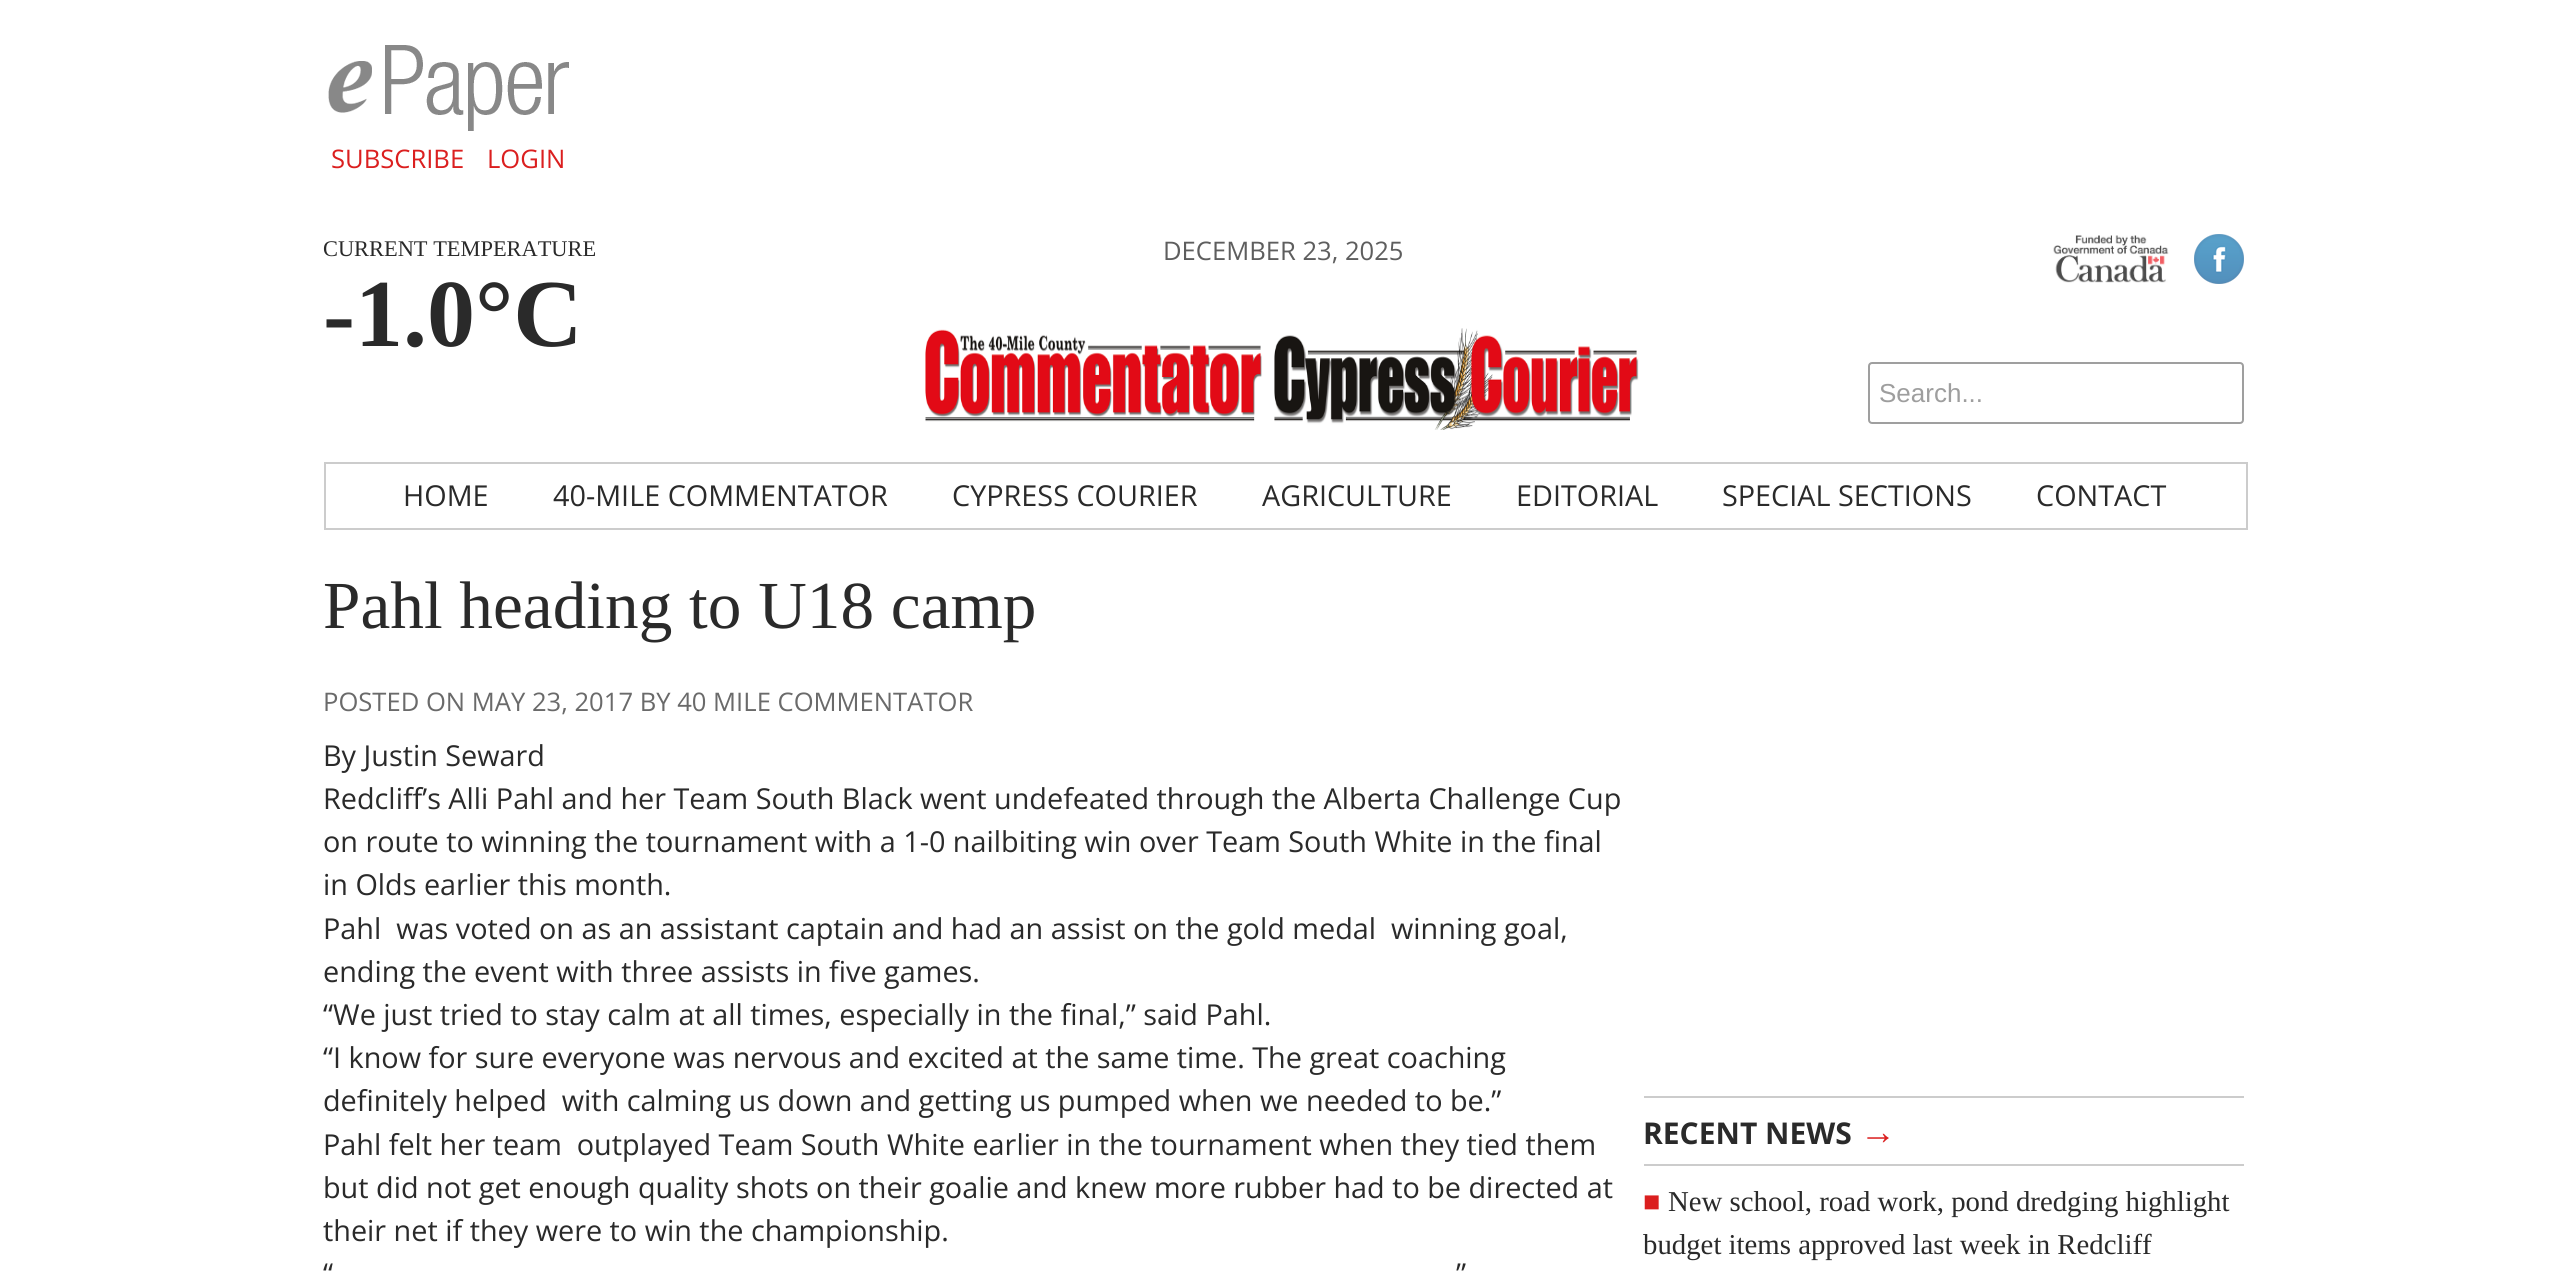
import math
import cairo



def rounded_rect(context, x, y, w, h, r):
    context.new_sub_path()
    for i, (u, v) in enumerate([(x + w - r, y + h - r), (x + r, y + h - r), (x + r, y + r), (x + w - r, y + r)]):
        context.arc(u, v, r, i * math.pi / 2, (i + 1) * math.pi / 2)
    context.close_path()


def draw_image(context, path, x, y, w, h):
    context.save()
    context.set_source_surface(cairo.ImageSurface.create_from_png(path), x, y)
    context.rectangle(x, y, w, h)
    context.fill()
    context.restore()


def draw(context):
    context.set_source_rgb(1, 1, 1)
    context.paint()
    draw_image(context, "images/1.png", 328, 45, 241, 86)
    draw_image(context, "images/2.png", 925, 328, 714, 102)
    draw_image(context, "images/3.png", 2053, 235, 116, 48)
    draw_image(context, "images/4.png", 2194, 234, 50, 50)
    rounded_rect(context, 1869, 363, 374, 60, 3)
    context.set_source_rgb(159 / 255, 159 / 255, 159 / 255)
    context.stroke()
    context.rectangle(325, 463, 1922, 66)
    context.set_source_rgb(204 / 255, 204 / 255, 204 / 255)
    context.stroke()
    context.rectangle(1644, 1096, 600, 2)
    context.fill()
    context.rectangle(1644, 1164, 600, 2)
    context.fill()
    context.select_font_face("Open Sans")
    context.set_font_size(25.6)
    context.set_source_rgb(219 / 255, 31 / 255, 31 / 255)
    context.move_to(331, 168)
    context.show_text("SUBSCRIBE")
    context.move_to(487, 168)
    context.show_text("LOGIN")
    context.select_font_face("Liberation Serif")
    context.set_font_size(22.4)
    context.set_source_rgb(42 / 255, 42 / 255, 42 / 255)
    context.move_to(323, 256)
    context.show_text("CURRENT TEMPERATURE")
    context.select_font_face("Liberation Serif", cairo.FontSlant.NORMAL, cairo.FontWeight.BOLD)
    context.set_font_size(96)
    context.move_to(323, 346)
    context.show_text("-1.0°C")
    context.select_font_face("Open Sans")
    context.set_font_size(25.6)
    context.set_source_rgb(94 / 255, 94 / 255, 94 / 255)
    context.move_to(1163, 260)
    context.show_text("DECEMBER 23, 2025")
    context.select_font_face("Liberation Sans")
    context.set_font_size(26)
    context.set_source_rgb(158 / 255, 158 / 255, 158 / 255)
    context.move_to(1879, 402)
    context.show_text("Search...")
    context.select_font_face("Open Sans")
    context.set_font_size(28.8)
    context.set_source_rgb(42 / 255, 42 / 255, 42 / 255)
    context.move_to(403, 506)
    context.show_text("HOME")
    context.move_to(553, 506)
    context.show_text("40-MILE COMMENTATOR")
    context.move_to(952, 506)
    context.show_text("CYPRESS COURIER")
    context.move_to(1262, 506)
    context.show_text("AGRICULTURE")
    context.move_to(1516, 506)
    context.show_text("EDITORIAL")
    context.move_to(1722, 506)
    context.show_text("SPECIAL SECTIONS")
    context.move_to(2036, 506)
    context.show_text("CONTACT")
    context.select_font_face("Liberation Serif")
    context.set_font_size(67.25)
    context.move_to(323, 628)
    context.show_text("Pahl heading to U18 camp")
    context.select_font_face("Open Sans")
    context.set_font_size(25.6)
    context.set_source_rgb(106 / 255, 106 / 255, 106 / 255)
    context.move_to(323, 711)
    context.show_text("POSTED ON MAY 23, 2017 BY 40 MILE COMMENTATOR")
    context.set_font_size(28.8)
    context.set_source_rgb(42 / 255, 42 / 255, 42 / 255)
    context.move_to(323, 766)
    context.show_text("By Justin Seward")
    context.move_to(323, 809)
    context.show_text("Redcliff’s Alli Pahl and her Team South Black went undefeated through the Alberta Challenge Cup")
    context.move_to(323, 852)
    context.show_text("on route to winning the tournament with a 1-0 nailbiting win over Team South White in the final")
    context.move_to(323, 895)
    context.show_text("in Olds earlier this month.")
    context.move_to(323, 939)
    context.show_text("Pahl  was voted on as an assistant captain and had an assist on the gold medal  winning goal,")
    context.move_to(323, 982)
    context.show_text("ending the event with three assists in five games.")
    context.move_to(323, 1025)
    context.show_text("“We just tried to stay calm at all times, especially in the final,” said Pahl.")
    context.move_to(323, 1068)
    context.show_text("“I know for sure everyone was nervous and excited at the same time. The great coaching")
    context.move_to(323, 1111)
    context.show_text("definitely helped  with calming us down and getting us pumped when we needed to be.”")
    context.move_to(323, 1155)
    context.show_text("Pahl felt her team  outplayed Team South White earlier in the tournament when they tied them")
    context.move_to(323, 1198)
    context.show_text("but did not get enough quality shots on their goalie and knew more rubber had to be directed at")
    context.move_to(323, 1241)
    context.show_text("their net if they were to win the championship.")
    context.move_to(323, 1284)
    context.show_text("“")
    context.move_to(1456, 1284)
    context.show_text("”")
    context.select_font_face("Open Sans", cairo.FontSlant.NORMAL, cairo.FontWeight.BOLD)
    context.set_font_size(30)
    context.move_to(1643, 1144)
    context.show_text("RECENT NEWS")
    context.select_font_face("Liberation Sans", cairo.FontSlant.NORMAL, cairo.FontWeight.BOLD)
    context.set_font_size(36)
    context.set_source_rgb(219 / 255, 31 / 255, 31 / 255)
    context.move_to(1860, 1144)
    context.show_text("→")
    context.select_font_face("Liberation Serif")
    context.set_font_size(28.8)
    context.move_to(1643, 1211)
    context.show_text("■")
    context.set_source_rgb(42 / 255, 42 / 255, 42 / 255)
    context.move_to(1668, 1211)
    context.show_text("New school, road work, pond dredging highlight")
    context.move_to(1643, 1254)
    context.show_text("budget items approved last week in Redcliff")


surface = cairo.ImageSurface(cairo.Format.RGB24, 2566, 1277)
context = cairo.Context(surface)
options = cairo.FontOptions()
options.set_hint_metrics(cairo.HintMetrics.OFF)
options.set_hint_style(cairo.HintStyle.NONE)
context.set_font_options(options)
context.set_miter_limit(4)
draw(context)
surface.write_to_png("out.png")
